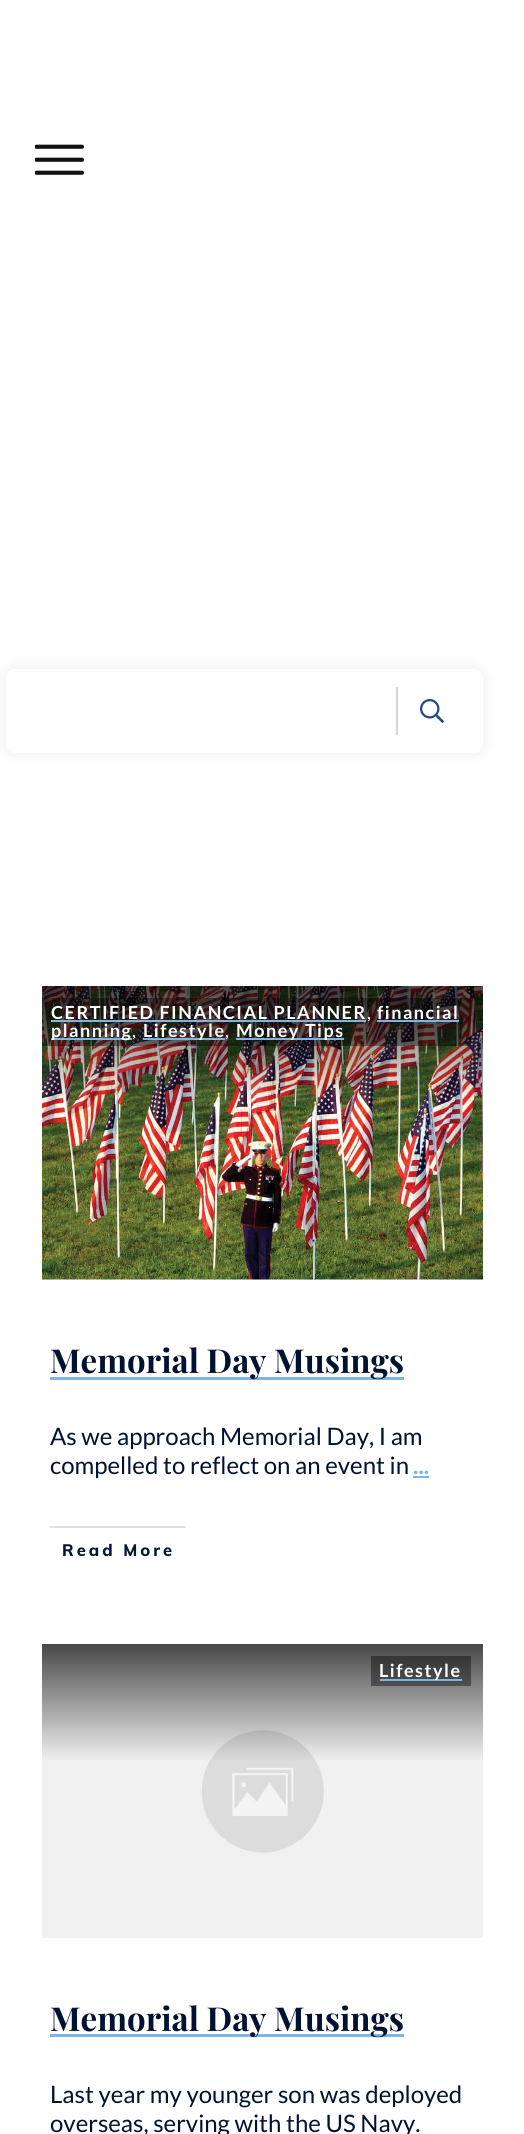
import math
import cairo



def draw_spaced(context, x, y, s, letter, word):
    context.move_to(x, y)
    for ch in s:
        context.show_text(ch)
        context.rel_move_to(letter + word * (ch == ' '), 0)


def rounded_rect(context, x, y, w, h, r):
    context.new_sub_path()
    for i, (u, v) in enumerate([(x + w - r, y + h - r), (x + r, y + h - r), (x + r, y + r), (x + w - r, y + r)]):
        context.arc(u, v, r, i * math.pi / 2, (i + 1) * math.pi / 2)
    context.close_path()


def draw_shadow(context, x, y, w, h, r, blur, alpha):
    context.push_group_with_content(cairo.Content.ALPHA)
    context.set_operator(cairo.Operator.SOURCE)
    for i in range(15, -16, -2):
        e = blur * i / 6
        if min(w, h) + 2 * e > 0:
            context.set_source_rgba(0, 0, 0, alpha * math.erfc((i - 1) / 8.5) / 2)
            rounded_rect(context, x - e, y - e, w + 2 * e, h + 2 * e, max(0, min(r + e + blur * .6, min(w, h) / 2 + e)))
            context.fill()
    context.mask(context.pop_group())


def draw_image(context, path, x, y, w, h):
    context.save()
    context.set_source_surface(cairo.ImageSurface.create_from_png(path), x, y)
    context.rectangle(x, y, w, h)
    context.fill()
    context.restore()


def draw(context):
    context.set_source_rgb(1, 1, 1)
    context.paint()
    draw_image(context, "images/1.png", 35, 144, 49, 31)
    context.set_source_rgb(0, 0, 0)
    draw_shadow(context, 6, 669, 477, 84, 9, 8, 0.08)
    context.set_source_rgb(1, 1, 1)
    rounded_rect(context, 6, 669, 477, 84, 9)
    context.fill()
    context.set_source_rgb(214 / 255, 214 / 255, 214 / 255)
    context.rectangle(396, 687, 2, 48)
    context.fill()
    draw_image(context, "images/2.png", 420, 699, 24, 24)
    draw_image(context, "images/3.png", 42, 986, 441, 294)
    context.set_source_rgba(0, 0, 0, 0.4)
    context.rectangle(42, 998, 429, 48)
    context.fill()
    context.set_source_rgb(123 / 255, 183 / 255, 224 / 255)
    context.rectangle(51, 1020, 315, 2)
    context.fill()
    context.rectangle(377, 1020, 82, 2)
    context.fill()
    context.rectangle(51, 1038, 81, 2)
    context.fill()
    context.rectangle(143, 1038, 82, 2)
    context.fill()
    context.rectangle(236, 1038, 108, 2)
    context.fill()
    context.rectangle(50, 1377, 354, 3)
    context.fill()
    context.rectangle(413, 1476, 16, 2)
    context.fill()
    context.set_source_rgb(224 / 255, 224 / 255, 224 / 255)
    context.rectangle(50, 1526, 136, 2)
    context.fill()
    draw_image(context, "images/4.png", 42, 1644, 441, 294)
    context.set_source_rgba(0, 0, 0, 0.4)
    context.rectangle(371, 1656, 100, 30)
    context.fill()
    context.set_source_rgb(123 / 255, 183 / 255, 224 / 255)
    context.rectangle(380, 1679, 82, 2)
    context.fill()
    context.rectangle(50, 2034, 354, 3)
    context.fill()
    context.select_font_face("Lato", cairo.FontSlant.NORMAL, cairo.FontWeight.BOLD)
    context.set_font_size(18)
    context.set_source_rgb(1, 1, 1)
    draw_spaced(context, 51, 1019, "CERTIFIED FINANCIAL PLANNER", 1.5, 0)
    context.select_font_face("Lato")
    draw_spaced(context, 367, 1019, ",", 1.5, 0)
    context.select_font_face("Lato", cairo.FontSlant.NORMAL, cairo.FontWeight.BOLD)
    draw_spaced(context, 377, 1019, "financial", 1.5, 0)
    draw_spaced(context, 51, 1037, "planning", 1.5, 0)
    context.select_font_face("Lato")
    draw_spaced(context, 132, 1037, ",", 1.5, 0)
    context.select_font_face("Lato", cairo.FontSlant.NORMAL, cairo.FontWeight.BOLD)
    draw_spaced(context, 143, 1037, "Lifestyle", 1.5, 0)
    context.select_font_face("Lato")
    draw_spaced(context, 225, 1037, ",", 1.5, 0)
    context.select_font_face("Lato", cairo.FontSlant.NORMAL, cairo.FontWeight.BOLD)
    draw_spaced(context, 236, 1037, "Money Tips", 1.5, 0)
    context.select_font_face("Playfair Display", cairo.FontSlant.NORMAL, cairo.FontWeight.BOLD)
    context.set_font_size(33)
    context.set_source_rgb(1 / 255, 17 / 255, 49 / 255)
    context.move_to(50, 1373)
    context.show_text("Memorial Day Musings")
    context.select_font_face("Lato")
    context.set_font_size(24)
    context.move_to(50, 1445)
    context.show_text("As we approach Memorial Day, I am")
    context.move_to(50, 1474)
    context.show_text("compelled to reflect on an event in")
    context.select_font_face("Lato", cairo.FontSlant.NORMAL, cairo.FontWeight.BOLD)
    context.set_source_rgb(123 / 255, 183 / 255, 224 / 255)
    context.move_to(413, 1474)
    context.show_text("...")
    context.select_font_face("Muli ExtraBold")
    context.set_font_size(16.5)
    context.set_source_rgb(7 / 255, 23 / 255, 57 / 255)
    draw_spaced(context, 62, 1556, "Read More", 3, 0)
    context.select_font_face("Lato", cairo.FontSlant.NORMAL, cairo.FontWeight.BOLD)
    context.set_font_size(18)
    context.set_source_rgb(1, 1, 1)
    draw_spaced(context, 379, 1677, "Lifestyle", 1.5, 0)
    context.select_font_face("Playfair Display", cairo.FontSlant.NORMAL, cairo.FontWeight.BOLD)
    context.set_font_size(33)
    context.set_source_rgb(1 / 255, 17 / 255, 49 / 255)
    context.move_to(50, 2031)
    context.show_text("Memorial Day Musings")
    context.select_font_face("Lato")
    context.set_font_size(24)
    context.move_to(50, 2103)
    context.show_text("Last year my younger son was deployed")
    context.move_to(50, 2132)
    context.show_text("overseas, serving with the US Navy.")


surface = cairo.ImageSurface(cairo.Format.RGB24, 524, 2134)
context = cairo.Context(surface)
options = cairo.FontOptions()
options.set_hint_metrics(cairo.HintMetrics.OFF)
options.set_hint_style(cairo.HintStyle.NONE)
context.set_font_options(options)
context.set_miter_limit(4)
draw(context)
surface.write_to_png("out.png")
